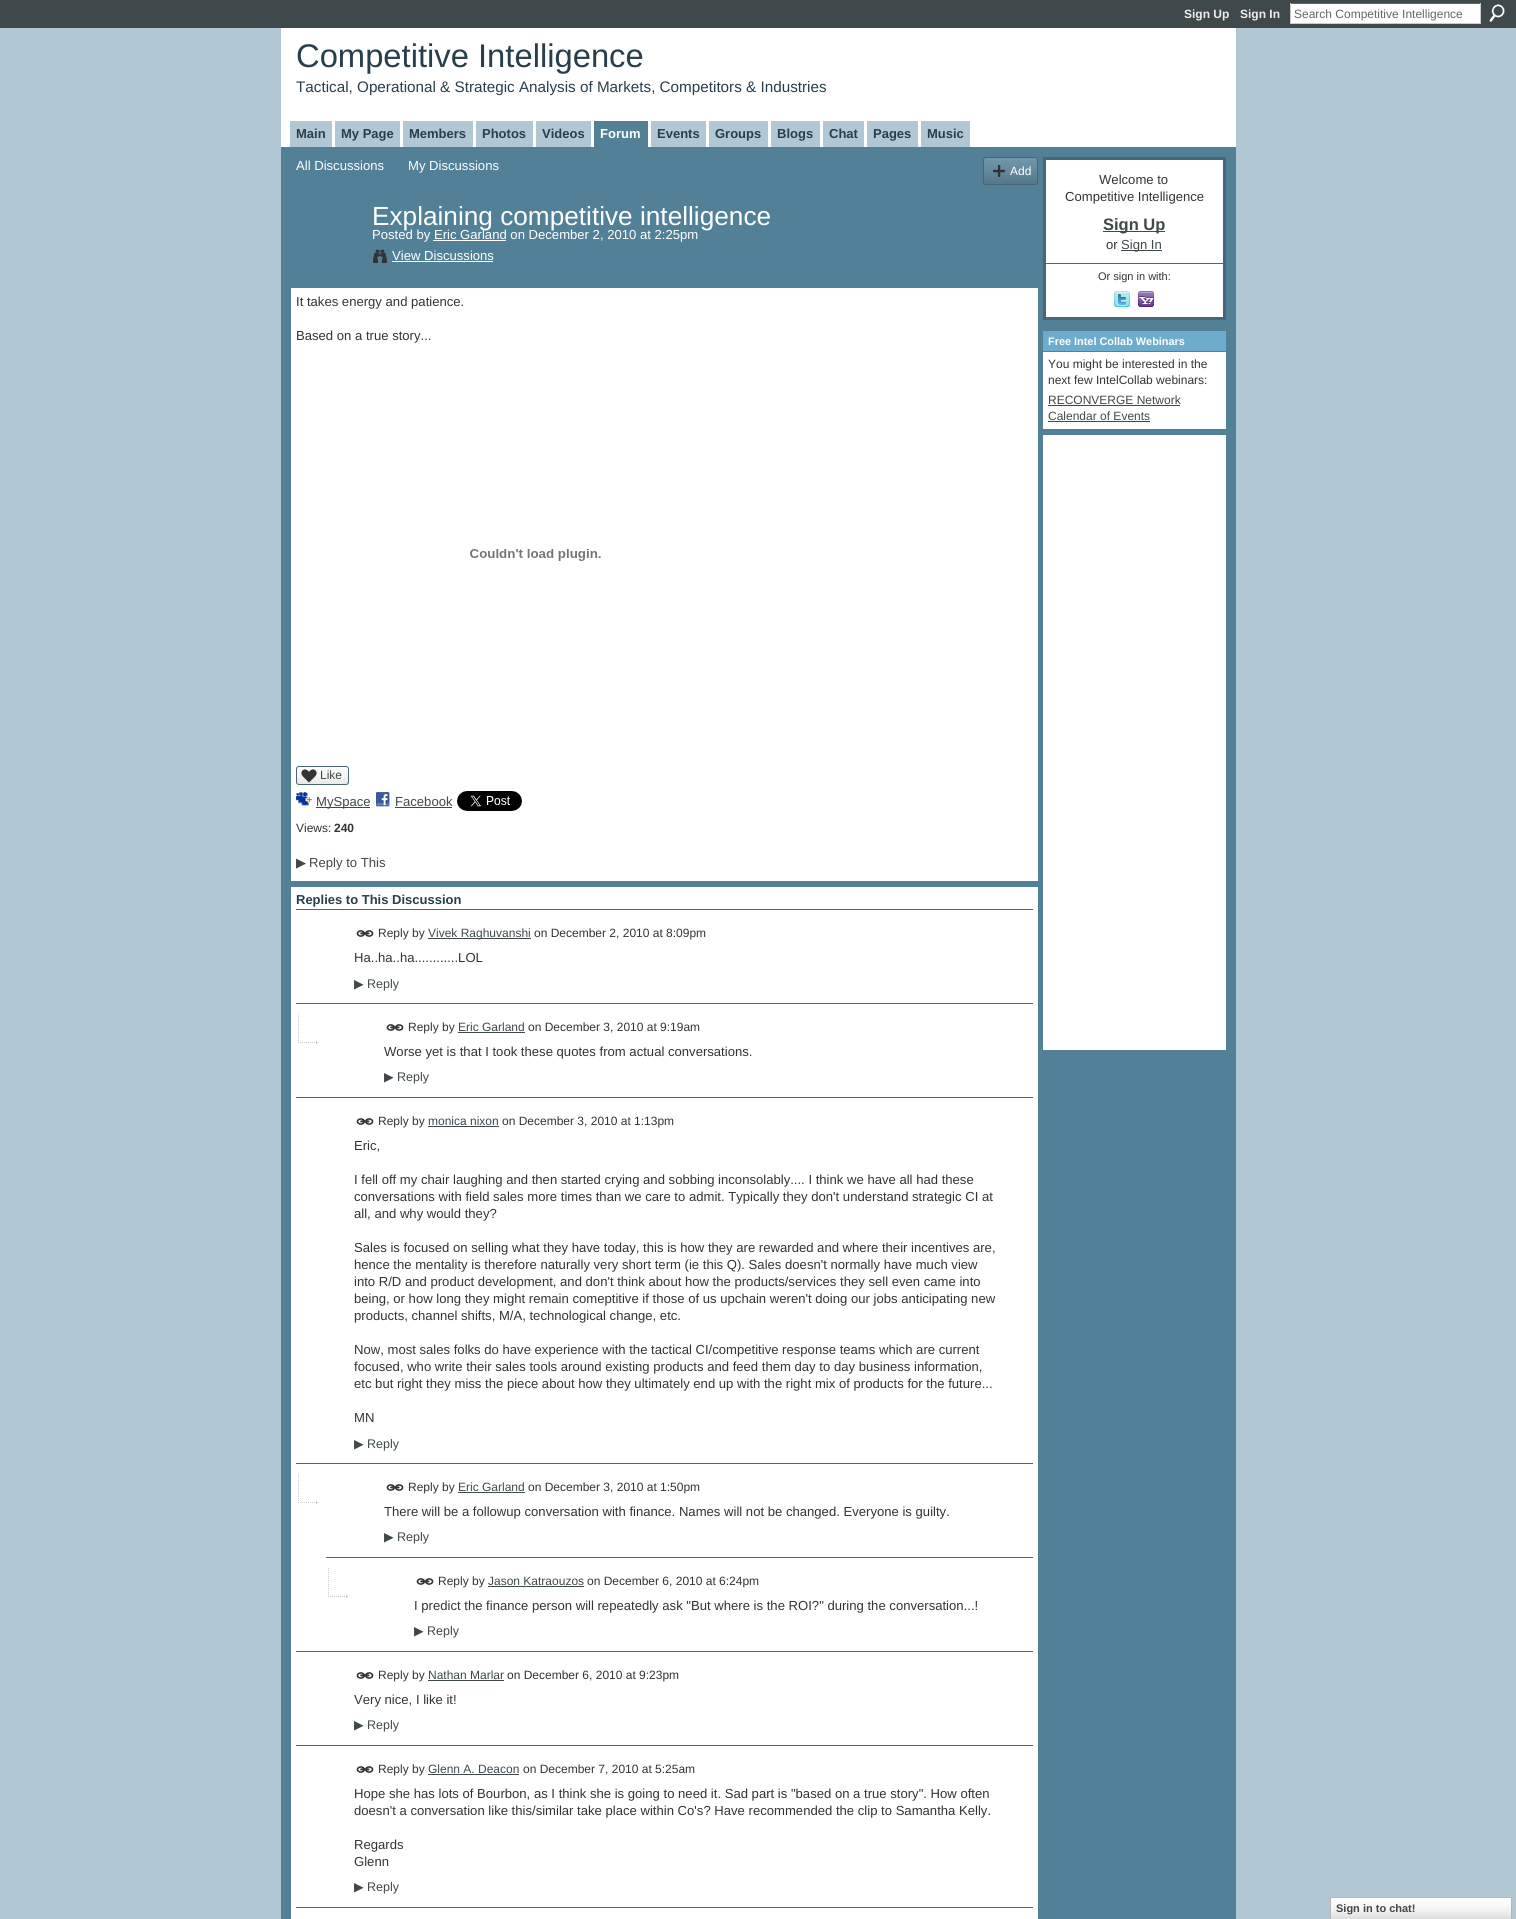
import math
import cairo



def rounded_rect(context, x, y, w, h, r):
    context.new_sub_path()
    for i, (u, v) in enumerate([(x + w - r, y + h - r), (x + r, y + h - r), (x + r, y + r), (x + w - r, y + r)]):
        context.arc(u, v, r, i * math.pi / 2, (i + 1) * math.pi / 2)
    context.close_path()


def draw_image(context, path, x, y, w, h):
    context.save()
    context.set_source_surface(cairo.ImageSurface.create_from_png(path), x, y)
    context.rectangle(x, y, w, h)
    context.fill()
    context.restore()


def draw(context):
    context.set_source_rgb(177 / 255, 200 / 255, 212 / 255)
    context.paint()
    context.set_source_rgb(63 / 255, 72 / 255, 75 / 255)
    context.rectangle(0, 0, 1516, 28)
    context.fill()
    context.set_source_rgb(1, 1, 1)
    context.rectangle(1291, 4, 189, 19)
    context.fill()
    context.set_source_rgb(102 / 255, 102 / 255, 102 / 255)
    context.rectangle(1290, 3, 191, 1)
    context.fill()
    context.set_source_rgb(204 / 255, 204 / 255, 204 / 255)
    context.rectangle(1480, 3, 1, 21)
    context.fill()
    context.rectangle(1290, 23, 191, 1)
    context.fill()
    context.rectangle(1290, 3, 1, 21)
    context.fill()
    draw_image(context, "images/1.png", 1489, 4, 16, 18)
    context.set_source_rgb(1, 1, 1)
    context.rectangle(281, 28, 955, 119)
    context.fill()
    context.set_source_rgb(177 / 255, 200 / 255, 212 / 255)
    context.rectangle(290, 121, 42, 26)
    context.fill()
    context.rectangle(335, 121, 65, 26)
    context.fill()
    context.rectangle(403, 121, 70, 26)
    context.fill()
    context.rectangle(476, 121, 57, 26)
    context.fill()
    context.rectangle(536, 121, 55, 26)
    context.fill()
    context.set_source_rgb(82 / 255, 128 / 255, 151 / 255)
    context.rectangle(594, 121, 54, 26)
    context.fill()
    context.set_source_rgb(177 / 255, 200 / 255, 212 / 255)
    context.rectangle(651, 121, 55, 26)
    context.fill()
    context.rectangle(709, 121, 59, 26)
    context.fill()
    context.rectangle(771, 121, 49, 26)
    context.fill()
    context.rectangle(823, 121, 41, 26)
    context.fill()
    context.rectangle(867, 121, 51, 26)
    context.fill()
    context.rectangle(921, 121, 49, 26)
    context.fill()
    context.set_source_rgb(82 / 255, 128 / 255, 151 / 255)
    context.rectangle(281, 147, 955, 1772)
    context.fill()
    draw_image(context, "images/2.png", 983, 158, 55, 27)
    rounded_rect(context, 983.5, 157.5, 54, 27, 2.5)
    context.set_source_rgb(72 / 255, 102 / 255, 118 / 255)
    context.set_line_width(1)
    context.stroke()
    draw_image(context, "images/3.png", 993, 165, 12, 12)
    context.set_source_rgb(1, 1, 1)
    context.rectangle(433, 240, 73, 1)
    context.fill()
    draw_image(context, "images/4.png", 373, 249, 14, 14)
    context.rectangle(392, 261, 101, 1)
    context.fill()
    context.rectangle(291, 288, 747, 593)
    context.fill()
    draw_image(context, "images/5.png", 470, 549, 131, 12)
    draw_image(context, "images/6.png", 296, 769, 53, 16)
    rounded_rect(context, 296.5, 766.5, 52, 18, 2.5)
    context.set_source_rgb(72 / 255, 102 / 255, 118 / 255)
    context.stroke()
    draw_image(context, "images/7.png", 301, 769, 16, 14)
    draw_image(context, "images/8.png", 296, 792, 16, 14)
    context.set_source_rgb(63 / 255, 72 / 255, 75 / 255)
    context.rectangle(316, 807, 54, 1)
    context.fill()
    draw_image(context, "images/9.png", 376, 792, 14, 15)
    context.rectangle(395, 807, 57, 1)
    context.fill()
    draw_image(context, "images/10.png", 457, 791, 65, 20)
    context.set_source_rgb(1, 1, 1)
    context.rectangle(291, 887, 747, 1032)
    context.fill()
    context.set_source_rgb(72 / 255, 102 / 255, 118 / 255)
    context.rectangle(296, 909, 737, 1)
    context.fill()
    draw_image(context, "images/11.png", 356, 930, 18, 7)
    context.set_source_rgb(63 / 255, 72 / 255, 75 / 255)
    context.rectangle(428, 938, 103, 1)
    context.fill()
    draw_image(context, "images/12.png", 298, 1014, 20, 30)
    context.set_source_rgb(72 / 255, 102 / 255, 118 / 255)
    context.rectangle(296, 1003, 737, 1)
    context.fill()
    draw_image(context, "images/11.png", 386, 1024, 18, 7)
    context.set_source_rgb(63 / 255, 72 / 255, 75 / 255)
    context.rectangle(458, 1032, 67, 1)
    context.fill()
    context.set_source_rgb(72 / 255, 102 / 255, 118 / 255)
    context.rectangle(296, 1097, 737, 1)
    context.fill()
    draw_image(context, "images/11.png", 356, 1118, 18, 7)
    context.set_source_rgb(63 / 255, 72 / 255, 75 / 255)
    context.rectangle(428, 1126, 71, 1)
    context.fill()
    draw_image(context, "images/12.png", 298, 1474, 20, 30)
    context.set_source_rgb(72 / 255, 102 / 255, 118 / 255)
    context.rectangle(296, 1463, 737, 1)
    context.fill()
    draw_image(context, "images/11.png", 386, 1484, 18, 7)
    context.set_source_rgb(63 / 255, 72 / 255, 75 / 255)
    context.rectangle(458, 1492, 67, 1)
    context.fill()
    draw_image(context, "images/12.png", 328, 1568, 20, 30)
    context.set_source_rgb(72 / 255, 102 / 255, 118 / 255)
    context.rectangle(326, 1557, 707, 1)
    context.fill()
    draw_image(context, "images/11.png", 416, 1578, 18, 7)
    context.set_source_rgb(63 / 255, 72 / 255, 75 / 255)
    context.rectangle(488, 1586, 96, 1)
    context.fill()
    context.set_source_rgb(72 / 255, 102 / 255, 118 / 255)
    context.rectangle(296, 1651, 737, 1)
    context.fill()
    draw_image(context, "images/11.png", 356, 1672, 18, 7)
    context.set_source_rgb(63 / 255, 72 / 255, 75 / 255)
    context.rectangle(428, 1680, 76, 1)
    context.fill()
    context.set_source_rgb(72 / 255, 102 / 255, 118 / 255)
    context.rectangle(296, 1745, 737, 1)
    context.fill()
    draw_image(context, "images/11.png", 356, 1766, 18, 7)
    context.set_source_rgb(63 / 255, 72 / 255, 75 / 255)
    context.rectangle(428, 1774, 91, 1)
    context.fill()
    context.set_source_rgb(72 / 255, 102 / 255, 118 / 255)
    context.rectangle(296, 1907, 737, 1)
    context.fill()
    context.set_source_rgb(1, 1, 1)
    context.rectangle(1044.5, 158.5, 180, 160)
    context.fill_preserve()
    context.set_source_rgb(72 / 255, 102 / 255, 118 / 255)
    context.set_line_width(3)
    context.stroke()
    context.set_source_rgb(63 / 255, 72 / 255, 75 / 255)
    context.rectangle(1103, 231, 62, 1)
    context.fill()
    context.rectangle(1121, 250, 41, 1)
    context.fill()
    context.set_source_rgb(72 / 255, 102 / 255, 118 / 255)
    context.rectangle(1046, 263, 177, 1)
    context.fill()
    draw_image(context, "images/13.png", 1114, 291, 16, 16)
    draw_image(context, "images/14.png", 1138, 291, 16, 16)
    context.set_source_rgb(109 / 255, 172 / 255, 204 / 255)
    context.rectangle(1043, 331, 183, 20)
    context.fill()
    context.set_source_rgb(1, 1, 1)
    context.rectangle(1043, 352, 183, 77)
    context.fill()
    context.set_source_rgb(63 / 255, 72 / 255, 75 / 255)
    context.rectangle(1048, 405, 132, 1)
    context.fill()
    context.rectangle(1048, 421, 102, 1)
    context.fill()
    context.set_source_rgb(1, 1, 1)
    context.rectangle(1043, 435, 183, 615)
    context.fill()
    draw_image(context, "images/15.png", 1331, 1898, 180, 21)
    context.rectangle(1330.5, 1897.5, 181, 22)
    context.set_source_rgb(183 / 255, 183 / 255, 183 / 255)
    context.set_line_width(1)
    context.stroke()
    context.select_font_face("Liberation Sans", cairo.FontSlant.NORMAL, cairo.FontWeight.BOLD)
    context.set_font_size(12)
    context.set_source_rgb(238 / 255, 238 / 255, 238 / 255)
    context.move_to(1184, 18)
    context.show_text("Sign Up")
    context.move_to(1240, 18)
    context.show_text("Sign In")
    context.select_font_face("Liberation Sans")
    context.set_source_rgb(102 / 255, 102 / 255, 102 / 255)
    context.move_to(1294, 18)
    context.show_text("Search Competitive Intelligence")
    context.set_font_size(32.75)
    context.set_source_rgb(40 / 255, 63 / 255, 75 / 255)
    context.move_to(296, 67)
    context.show_text("Competitive Intelligence")
    context.set_font_size(15.25)
    context.move_to(296, 92)
    context.show_text("Tactical, Operational & Strategic Analysis of Markets, Competitors & Industries")
    context.select_font_face("Liberation Sans", cairo.FontSlant.NORMAL, cairo.FontWeight.BOLD)
    context.set_font_size(13)
    context.move_to(296, 138)
    context.show_text("Main")
    context.move_to(341, 138)
    context.show_text("My Page")
    context.move_to(409, 138)
    context.show_text("Members")
    context.move_to(482, 138)
    context.show_text("Photos")
    context.move_to(542, 138)
    context.show_text("Videos")
    context.set_source_rgb(1, 1, 1)
    context.move_to(600, 138)
    context.show_text("Forum")
    context.set_source_rgb(40 / 255, 63 / 255, 75 / 255)
    context.move_to(657, 138)
    context.show_text("Events")
    context.move_to(715, 138)
    context.show_text("Groups")
    context.move_to(777, 138)
    context.show_text("Blogs")
    context.move_to(829, 138)
    context.show_text("Chat")
    context.move_to(873, 138)
    context.show_text("Pages")
    context.move_to(927, 138)
    context.show_text("Music")
    context.select_font_face("Liberation Sans")
    context.set_font_size(13.1)
    context.set_source_rgb(1, 1, 1)
    context.move_to(296, 170)
    context.show_text("All Discussions")
    context.move_to(408, 170)
    context.show_text("My Discussions")
    context.set_font_size(12)
    context.move_to(1010, 175)
    context.show_text("Add")
    context.set_font_size(26.2)
    context.move_to(372, 225)
    context.show_text("Explaining competitive intelligence")
    context.set_font_size(13.1)
    context.move_to(372, 239)
    context.show_text("Posted by Eric Garland on December 2, 2010 at 2:25pm")
    context.move_to(392, 260)
    context.show_text("View Discussions")
    context.set_source_rgb(51 / 255, 51 / 255, 51 / 255)
    context.move_to(296, 306)
    context.show_text("It takes energy and patience.")
    context.move_to(296, 340)
    context.show_text("Based on a true story...")
    context.set_font_size(12)
    context.set_source_rgb(63 / 255, 72 / 255, 75 / 255)
    context.move_to(320, 779)
    context.show_text("Like")
    context.set_font_size(13.1)
    context.move_to(316, 806)
    context.show_text("MySpace")
    context.move_to(395, 806)
    context.show_text("Facebook")
    context.set_font_size(12)
    context.set_source_rgb(51 / 255, 51 / 255, 51 / 255)
    context.move_to(296, 832)
    context.show_text("Views:")
    context.select_font_face("Liberation Sans", cairo.FontSlant.NORMAL, cairo.FontWeight.BOLD)
    context.move_to(334, 832)
    context.show_text("240")
    context.select_font_face("DejaVu Sans")
    context.set_font_size(13.1)
    context.set_source_rgb(63 / 255, 72 / 255, 75 / 255)
    context.move_to(296, 867)
    context.show_text("▶")
    context.select_font_face("Liberation Sans")
    context.move_to(309, 867)
    context.show_text("Reply to This")
    context.select_font_face("Liberation Sans", cairo.FontSlant.NORMAL, cairo.FontWeight.BOLD)
    context.set_font_size(13)
    context.set_source_rgb(40 / 255, 63 / 255, 75 / 255)
    context.move_to(296, 904)
    context.show_text("Replies to This Discussion")
    context.select_font_face("Liberation Sans")
    context.set_font_size(12)
    context.set_source_rgb(51 / 255, 51 / 255, 51 / 255)
    context.move_to(378, 937)
    context.show_text("Reply by")
    context.set_source_rgb(63 / 255, 72 / 255, 75 / 255)
    context.move_to(428, 937)
    context.show_text("Vivek Raghuvanshi")
    context.set_source_rgb(51 / 255, 51 / 255, 51 / 255)
    context.move_to(534, 937)
    context.show_text("on December 2, 2010 at 8:09pm")
    context.set_font_size(13.1)
    context.move_to(354, 962)
    context.show_text("Ha..ha..ha............LOL")
    context.select_font_face("DejaVu Sans")
    context.set_font_size(12.5)
    context.set_source_rgb(63 / 255, 72 / 255, 75 / 255)
    context.move_to(354, 988)
    context.show_text("▶")
    context.select_font_face("Liberation Sans")
    context.move_to(367, 988)
    context.show_text("Reply")
    context.set_font_size(12)
    context.set_source_rgb(51 / 255, 51 / 255, 51 / 255)
    context.move_to(408, 1031)
    context.show_text("Reply by")
    context.set_source_rgb(63 / 255, 72 / 255, 75 / 255)
    context.move_to(458, 1031)
    context.show_text("Eric Garland")
    context.set_source_rgb(51 / 255, 51 / 255, 51 / 255)
    context.move_to(528, 1031)
    context.show_text("on December 3, 2010 at 9:19am")
    context.set_font_size(13.1)
    context.move_to(384, 1056)
    context.show_text("Worse yet is that I took these quotes from actual conversations.")
    context.select_font_face("DejaVu Sans")
    context.set_font_size(12.5)
    context.set_source_rgb(63 / 255, 72 / 255, 75 / 255)
    context.move_to(384, 1081)
    context.show_text("▶")
    context.select_font_face("Liberation Sans")
    context.move_to(397, 1081)
    context.show_text("Reply")
    context.set_font_size(12)
    context.set_source_rgb(51 / 255, 51 / 255, 51 / 255)
    context.move_to(378, 1125)
    context.show_text("Reply by")
    context.set_source_rgb(63 / 255, 72 / 255, 75 / 255)
    context.move_to(428, 1125)
    context.show_text("monica nixon")
    context.set_source_rgb(51 / 255, 51 / 255, 51 / 255)
    context.move_to(502, 1125)
    context.show_text("on December 3, 2010 at 1:13pm")
    context.set_font_size(13.1)
    context.move_to(354, 1150)
    context.show_text("Eric,")
    context.move_to(354, 1184)
    context.show_text("I fell off my chair laughing and then started crying and sobbing inconsolably.... I think we have all had these")
    context.move_to(354, 1201)
    context.show_text("conversations with field sales more times than we care to admit. Typically they don't understand strategic CI at")
    context.move_to(354, 1218)
    context.show_text("all, and why would they?")
    context.move_to(354, 1252)
    context.show_text("Sales is focused on selling what they have today, this is how they are rewarded and where their incentives are,")
    context.move_to(354, 1269)
    context.show_text("hence the mentality is therefore naturally very short term (ie this Q). Sales doesn't normally have much view")
    context.move_to(354, 1286)
    context.show_text("into R/D and product development, and don't think about how the products/services they sell even came into")
    context.move_to(354, 1303)
    context.show_text("being, or how long they might remain comeptitive if those of us upchain weren't doing our jobs anticipating new")
    context.move_to(354, 1320)
    context.show_text("products, channel shifts, M/A, technological change, etc.")
    context.move_to(354, 1354)
    context.show_text("Now, most sales folks do have experience with the tactical CI/competitive response teams which are current")
    context.move_to(354, 1371)
    context.show_text("focused, who write their sales tools around existing products and feed them day to day business information,")
    context.move_to(354, 1388)
    context.show_text("etc but right they miss the piece about how they ultimately end up with the right mix of products for the future...")
    context.move_to(354, 1422)
    context.show_text("MN")
    context.select_font_face("DejaVu Sans")
    context.set_font_size(12.5)
    context.set_source_rgb(63 / 255, 72 / 255, 75 / 255)
    context.move_to(354, 1448)
    context.show_text("▶")
    context.select_font_face("Liberation Sans")
    context.move_to(367, 1448)
    context.show_text("Reply")
    context.set_font_size(12)
    context.set_source_rgb(51 / 255, 51 / 255, 51 / 255)
    context.move_to(408, 1491)
    context.show_text("Reply by")
    context.set_source_rgb(63 / 255, 72 / 255, 75 / 255)
    context.move_to(458, 1491)
    context.show_text("Eric Garland")
    context.set_source_rgb(51 / 255, 51 / 255, 51 / 255)
    context.move_to(528, 1491)
    context.show_text("on December 3, 2010 at 1:50pm")
    context.set_font_size(13.1)
    context.move_to(384, 1516)
    context.show_text("There will be a followup conversation with finance. Names will not be changed. Everyone is guilty.")
    context.select_font_face("DejaVu Sans")
    context.set_font_size(12.5)
    context.set_source_rgb(63 / 255, 72 / 255, 75 / 255)
    context.move_to(384, 1541)
    context.show_text("▶")
    context.select_font_face("Liberation Sans")
    context.move_to(397, 1541)
    context.show_text("Reply")
    context.set_font_size(12)
    context.set_source_rgb(51 / 255, 51 / 255, 51 / 255)
    context.move_to(438, 1585)
    context.show_text("Reply by")
    context.set_source_rgb(63 / 255, 72 / 255, 75 / 255)
    context.move_to(488, 1585)
    context.show_text("Jason Katraouzos")
    context.set_source_rgb(51 / 255, 51 / 255, 51 / 255)
    context.move_to(587, 1585)
    context.show_text("on December 6, 2010 at 6:24pm")
    context.set_font_size(13.1)
    context.move_to(414, 1610)
    context.show_text("I predict the finance person will repeatedly ask \"But where is the ROI?\" during the conversation...!")
    context.select_font_face("DejaVu Sans")
    context.set_font_size(12.5)
    context.set_source_rgb(63 / 255, 72 / 255, 75 / 255)
    context.move_to(414, 1635)
    context.show_text("▶")
    context.select_font_face("Liberation Sans")
    context.move_to(427, 1635)
    context.show_text("Reply")
    context.set_font_size(12)
    context.set_source_rgb(51 / 255, 51 / 255, 51 / 255)
    context.move_to(378, 1679)
    context.show_text("Reply by")
    context.set_source_rgb(63 / 255, 72 / 255, 75 / 255)
    context.move_to(428, 1679)
    context.show_text("Nathan Marlar")
    context.set_source_rgb(51 / 255, 51 / 255, 51 / 255)
    context.move_to(507, 1679)
    context.show_text("on December 6, 2010 at 9:23pm")
    context.set_font_size(13.1)
    context.move_to(354, 1704)
    context.show_text("Very nice, I like it!")
    context.select_font_face("DejaVu Sans")
    context.set_font_size(12.5)
    context.set_source_rgb(63 / 255, 72 / 255, 75 / 255)
    context.move_to(354, 1729)
    context.show_text("▶")
    context.select_font_face("Liberation Sans")
    context.move_to(367, 1729)
    context.show_text("Reply")
    context.set_font_size(12)
    context.set_source_rgb(51 / 255, 51 / 255, 51 / 255)
    context.move_to(378, 1773)
    context.show_text("Reply by")
    context.set_source_rgb(63 / 255, 72 / 255, 75 / 255)
    context.move_to(428, 1773)
    context.show_text("Glenn A. Deacon")
    context.set_source_rgb(51 / 255, 51 / 255, 51 / 255)
    context.move_to(523, 1773)
    context.show_text("on December 7, 2010 at 5:25am")
    context.set_font_size(13.1)
    context.move_to(354, 1798)
    context.show_text("Hope she has lots of Bourbon, as I think she is going to need it. Sad part is \"based on a true story\". How often")
    context.move_to(354, 1815)
    context.show_text("doesn't a conversation like this/similar take place within Co's? Have recommended the clip to Samantha Kelly.")
    context.move_to(354, 1849)
    context.show_text("Regards")
    context.move_to(354, 1866)
    context.show_text("Glenn")
    context.select_font_face("DejaVu Sans")
    context.set_font_size(12.5)
    context.set_source_rgb(63 / 255, 72 / 255, 75 / 255)
    context.move_to(354, 1891)
    context.show_text("▶")
    context.select_font_face("Liberation Sans")
    context.move_to(367, 1891)
    context.show_text("Reply")
    context.set_font_size(13.1)
    context.set_source_rgb(51 / 255, 51 / 255, 51 / 255)
    context.move_to(1099, 184)
    context.show_text("Welcome to")
    context.move_to(1065, 201)
    context.show_text("Competitive Intelligence")
    context.select_font_face("Liberation Sans", cairo.FontSlant.NORMAL, cairo.FontWeight.BOLD)
    context.set_font_size(16.5)
    context.set_source_rgb(63 / 255, 72 / 255, 75 / 255)
    context.move_to(1103, 230)
    context.show_text("Sign Up")
    context.select_font_face("Liberation Sans")
    context.set_font_size(13.1)
    context.set_source_rgb(51 / 255, 51 / 255, 51 / 255)
    context.move_to(1106, 249)
    context.show_text("or")
    context.set_source_rgb(63 / 255, 72 / 255, 75 / 255)
    context.move_to(1121, 249)
    context.show_text("Sign In")
    context.set_font_size(11)
    context.set_source_rgb(51 / 255, 51 / 255, 51 / 255)
    context.move_to(1098, 280)
    context.show_text("Or sign in with:")
    context.select_font_face("Liberation Sans", cairo.FontSlant.NORMAL, cairo.FontWeight.BOLD)
    context.set_font_size(10.9)
    context.set_source_rgb(1, 1, 1)
    context.move_to(1048, 345)
    context.show_text("Free Intel Collab Webinars")
    context.select_font_face("Liberation Sans")
    context.set_font_size(12)
    context.set_source_rgb(51 / 255, 51 / 255, 51 / 255)
    context.move_to(1048, 368)
    context.show_text("You might be interested in the")
    context.move_to(1048, 384)
    context.show_text("next few IntelCollab webinars:")
    context.set_source_rgb(63 / 255, 72 / 255, 75 / 255)
    context.move_to(1048, 404)
    context.show_text("RECONVERGE Network")
    context.move_to(1048, 420)
    context.show_text("Calendar of Events")
    context.select_font_face("Liberation Sans", cairo.FontSlant.NORMAL, cairo.FontWeight.BOLD)
    context.set_font_size(11)
    context.set_source_rgb(69 / 255, 69 / 255, 69 / 255)
    context.move_to(1336, 1912)
    context.show_text("Sign in to chat!")


surface = cairo.ImageSurface(cairo.Format.RGB24, 1516, 1919)
context = cairo.Context(surface)
options = cairo.FontOptions()
options.set_hint_metrics(cairo.HintMetrics.OFF)
options.set_hint_style(cairo.HintStyle.NONE)
context.set_font_options(options)
context.set_miter_limit(4)
draw(context)
surface.write_to_png("out.png")
